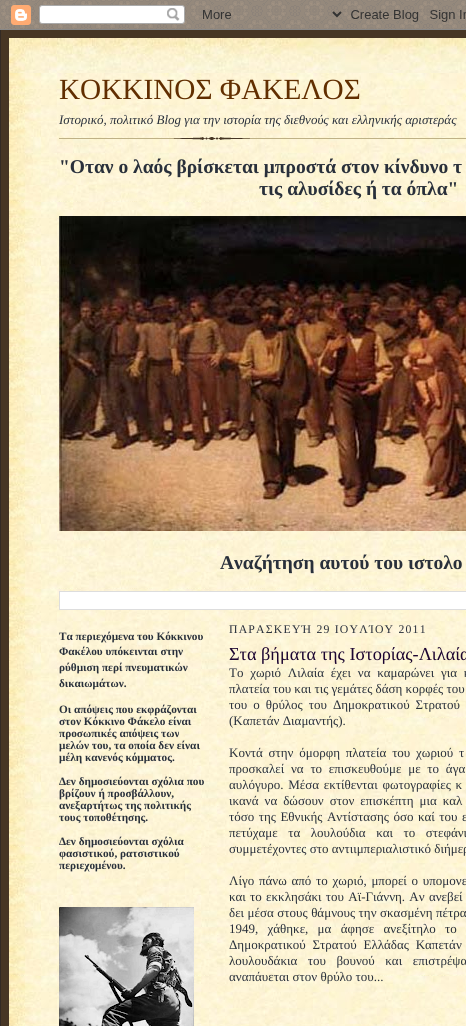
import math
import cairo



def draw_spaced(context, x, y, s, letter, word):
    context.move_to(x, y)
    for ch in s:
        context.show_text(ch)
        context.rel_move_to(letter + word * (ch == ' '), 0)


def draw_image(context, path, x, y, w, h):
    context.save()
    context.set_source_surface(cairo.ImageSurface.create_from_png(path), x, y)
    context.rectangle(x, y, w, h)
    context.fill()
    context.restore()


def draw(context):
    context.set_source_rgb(1, 1, 1)
    context.paint()
    draw_image(context, "images/1.png", 0, 0, 466, 29)
    draw_image(context, "images/2.png", 0, 0, 466, 30)
    context.set_source_rgb(71 / 255, 54 / 255, 36 / 255)
    context.rectangle(1, 30, 465, 996)
    context.fill()
    context.set_source_rgb(51 / 255, 42 / 255, 36 / 255)
    context.rectangle(0, 30, 1, 996)
    context.fill()
    draw_image(context, "images/3.png", 9, 38, 457, 35)
    draw_image(context, "images/4.png", 9, 73, 457, 953)
    draw_image(context, "images/5.png", 59, 137, 407, 3)
    draw_image(context, "images/6.png", 59, 216, 407, 315)
    context.set_source_rgb(1, 1, 1)
    context.rectangle(59.5, 591.5, 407, 18)
    context.fill_preserve()
    context.set_source_rgb(221 / 255, 221 / 255, 221 / 255)
    context.set_line_width(1)
    context.stroke()
    draw_image(context, "images/7.png", 59, 907, 135, 119)
    context.select_font_face("Liberation Serif")
    context.set_font_size(29.25)
    context.set_source_rgb(97 / 255, 46 / 255, 0)
    context.move_to(59, 99)
    context.show_text("KOKKINOΣ ΦΑΚΕΛΟΣ")
    context.select_font_face("Liberation Serif", cairo.FontSlant.ITALIC)
    context.set_font_size(13)
    context.set_source_rgb(41 / 255, 48 / 255, 59 / 255)
    context.move_to(59, 124)
    context.show_text("Ιστορικό, πολιτικό Blog για την ιστορία της διεθνούς και ελληνικής αριστεράς")
    context.select_font_face("Liberation Serif", cairo.FontSlant.NORMAL, cairo.FontWeight.BOLD)
    context.set_font_size(19.5)
    context.move_to(59, 173)
    context.show_text("\"Οταν ο λαός βρίσκεται μπροστά στον κίνδυνο τ")
    context.move_to(259, 195)
    context.show_text("τις αλυσίδες ή τα όπλα\"")
    context.move_to(220, 569)
    context.show_text("Αναζήτηση αυτού του ιστολο")
    context.set_font_size(11.25)
    context.move_to(59, 640)
    context.show_text("Τα περιεχόμενα του Κόκκινου")
    context.move_to(59, 655)
    context.show_text("Φακέλου υπόκεινται στην")
    context.move_to(59, 671)
    context.show_text("ρύθμιση περί πνευματικών")
    context.move_to(59, 687)
    context.show_text("δικαιωμάτων.")
    context.move_to(59, 713)
    context.show_text("Oι απόψεις που εκφράζονται")
    context.move_to(59, 725)
    context.show_text("στον Κόκκινο Φάκελο είναι")
    context.move_to(59, 737)
    context.show_text("προσωπικές απόψεις των")
    context.move_to(59, 749)
    context.show_text("μελών του, τα οποία δεν είναι")
    context.move_to(59, 761)
    context.show_text("μέλη κανενός κόμματος.")
    context.move_to(59, 785)
    context.show_text("Δεν δημοσιεύονται σχόλια που")
    context.move_to(59, 797)
    context.show_text("βρίζουν ή προσβάλλουν,")
    context.move_to(59, 809)
    context.show_text("ανεξαρτήτως της πολιτικής")
    context.move_to(59, 821)
    context.show_text("τους τοποθέτησης.")
    context.move_to(59, 845)
    context.show_text("Δεν δημοσιεύονται σχόλια")
    context.move_to(59, 857)
    context.show_text("φασιστικού, ρατσιστικού")
    context.move_to(59, 869)
    context.show_text("περιεχομένου.")
    context.select_font_face("Liberation Serif")
    context.set_font_size(11.75)
    draw_spaced(context, 229, 633, "ΠΑΡΑΣΚΕΥΉ 29 ΙΟΥΛΊΟΥ 2011", 1.2, 0)
    context.set_font_size(18.25)
    context.set_source_rgb(27 / 255, 4 / 255, 49 / 255)
    context.move_to(229, 660)
    context.show_text("Στα βήματα της Ιστορίας-Λιλαία")
    context.set_font_size(13)
    context.set_source_rgb(41 / 255, 48 / 255, 59 / 255)
    draw_spaced(context, 229, 677, "Το χωριό Λιλαία έχει να καμαρώνει για κ", 0, 3.5)
    context.move_to(229, 693)
    context.show_text("πλατεία του και τις γεμάτες δάση κορφές του")
    draw_spaced(context, 229, 709, "του ο θρύλος του Δημοκρατικού Στρατού", 0, 2.75)
    context.move_to(229, 725)
    context.show_text("(Καπετάν Διαμαντής).")
    draw_spaced(context, 229, 757, "Κοντά στην όμορφη πλατεία του χωριού τ", 0, 2.5)
    draw_spaced(context, 229, 773, "προσκαλεί να το επισκευθούμε με το άγα", 0, 3.5)
    draw_spaced(context, 229, 789, "αυλόγυρο. Μέσα εκτίθενται φωτογραφίες κ", 0, 1.5)
    draw_spaced(context, 229, 805, "ικανά να δώσουν στον επισκέπτη μια καλ", 0, 2.75)
    draw_spaced(context, 229, 821, "τόσο της Εθνικής Αντίστασης όσο καί του ε", 0, 1.25)
    draw_spaced(context, 229, 837, "πετύχαμε τα λουλούδια και το στεφάνι", 0, 7.25)
    context.move_to(229, 853)
    context.show_text("συμμετέχοντες στο αντιιμπεριαλιστικό διήμερ")
    draw_spaced(context, 229, 885, "Λίγο πάνω από το χωριό, μπορεί ο υπομονε", 0, 1.5)
    draw_spaced(context, 229, 901, "και το εκκλησάκι του Αϊ-Γιάννη. Αν ανεβεί", 0, 1)
    draw_spaced(context, 229, 917, "δει μέσα στους θάμνους την σκασμένη πέτρα", 0, 0.25)
    draw_spaced(context, 229, 933, "1949, χάθηκε, μα άφησε ανεξίτηλο το", 0, 6)
    draw_spaced(context, 229, 949, "Δημοκρατικού Στρατού Ελλάδας Καπετάν", 0, 3.5)
    draw_spaced(context, 229, 965, "λουλουδάκια του βουνού και επιστρέψα", 0, 7.25)
    context.move_to(229, 981)
    context.show_text("αναπάυεται στον θρύλο του...")


surface = cairo.ImageSurface(cairo.Format.RGB24, 466, 1026)
context = cairo.Context(surface)
options = cairo.FontOptions()
options.set_hint_metrics(cairo.HintMetrics.OFF)
options.set_hint_style(cairo.HintStyle.NONE)
context.set_font_options(options)
context.set_miter_limit(4)
draw(context)
surface.write_to_png("out.png")
